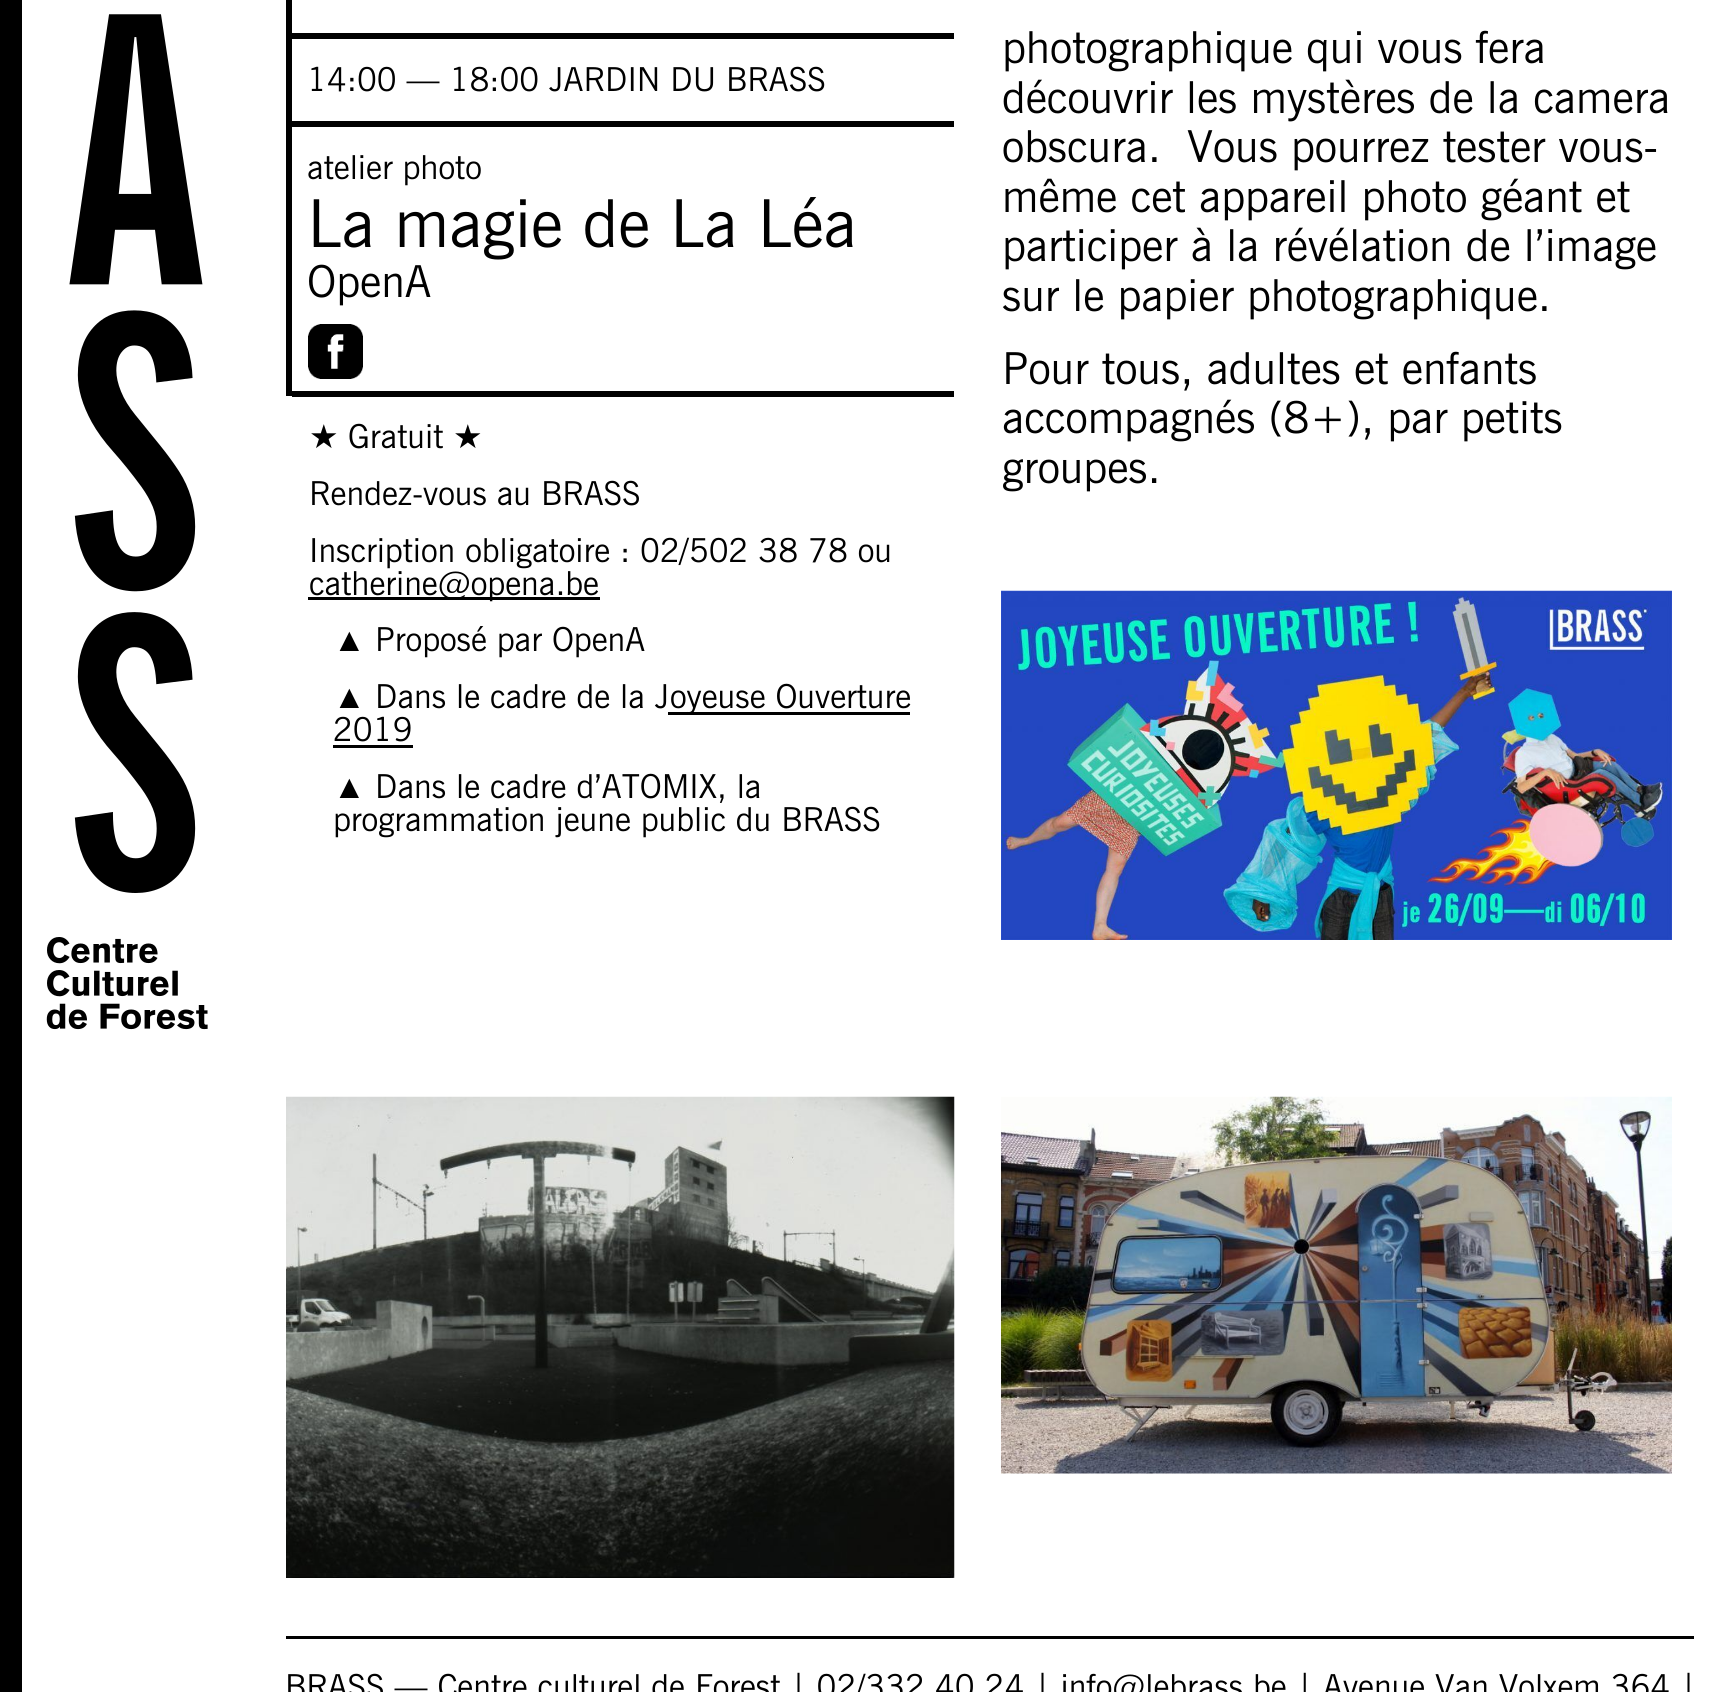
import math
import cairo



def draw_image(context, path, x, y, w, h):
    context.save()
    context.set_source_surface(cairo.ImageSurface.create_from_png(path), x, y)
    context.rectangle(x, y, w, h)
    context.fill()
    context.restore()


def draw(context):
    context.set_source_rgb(1, 1, 1)
    context.paint()
    context.set_source_rgb(0, 0, 0)
    context.rectangle(0, 0, 22, 1692)
    context.fill()
    draw_image(context, "images/1.png", 46, 14, 162, 1016)
    context.rectangle(286, 0, 6, 396)
    context.fill()
    context.rectangle(292, 33, 662, 6)
    context.fill()
    context.rectangle(292, 121, 662, 6)
    context.fill()
    context.rectangle(292, 391, 662, 6)
    context.fill()
    draw_image(context, "images/2.png", 308, 324, 55, 55)
    context.rectangle(308, 597, 292, 3)
    context.fill()
    context.rectangle(668, 712, 242, 3)
    context.fill()
    context.rectangle(333, 745, 80, 3)
    context.fill()
    draw_image(context, "images/3.png", 1001, 590, 671, 350)
    draw_image(context, "images/4.png", 286, 1096, 669, 482)
    draw_image(context, "images/5.png", 1001, 1096, 671, 378)
    context.rectangle(286, 1636, 1408, 3)
    context.fill()
    context.select_font_face("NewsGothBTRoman")
    context.set_font_size(33)
    context.move_to(307, 91)
    context.show_text("14:00 — 18:00 JARDIN DU BRASS")
    context.move_to(307, 179)
    context.show_text("atelier photo")
    context.set_font_size(66)
    context.move_to(307, 247)
    context.show_text("La magie de La Léa")
    context.set_font_size(44)
    context.move_to(307, 297)
    context.show_text("OpenA")
    context.select_font_face("DejaVu Sans")
    context.set_font_size(33)
    context.move_to(309, 448)
    context.show_text("★")
    context.select_font_face("NewsGothBTRoman")
    context.move_to(348, 448)
    context.show_text("Gratuit")
    context.select_font_face("DejaVu Sans")
    context.move_to(453, 448)
    context.show_text("★")
    context.select_font_face("NewsGothBTRoman")
    context.move_to(309, 505)
    context.show_text("Rendez-vous au BRASS")
    context.move_to(309, 562)
    context.show_text("Inscription obligatoire : 02/502 38 78 ou")
    context.move_to(309, 595)
    context.show_text("catherine@opena.be")
    context.select_font_face("Liberation Sans")
    context.move_to(333, 651)
    context.show_text("▲")
    context.select_font_face("NewsGothBTRoman")
    context.move_to(375, 651)
    context.show_text("Proposé par OpenA")
    context.select_font_face("Liberation Sans")
    context.move_to(333, 708)
    context.show_text("▲")
    context.select_font_face("NewsGothBTRoman")
    context.move_to(375, 708)
    context.show_text("Dans le cadre de la J")
    context.move_to(670, 708)
    context.show_text("oyeuse Ouverture")
    context.move_to(333, 741)
    context.show_text("2019")
    context.select_font_face("Liberation Sans")
    context.move_to(333, 798)
    context.show_text("▲")
    context.select_font_face("NewsGothBTRoman")
    context.move_to(375, 798)
    context.show_text("Dans le cadre d’ATOMIX, la")
    context.move_to(333, 831)
    context.show_text("programmation jeune public du BRASS")
    context.set_font_size(44)
    context.move_to(1002, 63)
    context.show_text("photographique qui vous fera")
    context.move_to(1002, 113)
    context.show_text("découvrir les mystères de la camera")
    context.move_to(1002, 162)
    context.show_text("obscura.")
    context.move_to(1187, 162)
    context.show_text("Vous pourrez tester vous-")
    context.move_to(1002, 212)
    context.show_text("même cet appareil photo géant et")
    context.move_to(1002, 261)
    context.show_text("participer à la révélation de l’image")
    context.move_to(1002, 311)
    context.show_text("sur le papier photographique.")
    context.move_to(1002, 384)
    context.show_text("Pour tous, adultes et enfants")
    context.move_to(1002, 433)
    context.show_text("accompagnés (8+), par petits")
    context.move_to(1002, 483)
    context.show_text("groupes.")
    context.set_font_size(33)
    context.move_to(285, 1698)
    context.show_text("BRASS — Centre culturel de Forest | 02/332.40.24 | info@lebrass.be | Avenue Van Volxem 364 |")


surface = cairo.ImageSurface(cairo.Format.RGB24, 1720, 1692)
context = cairo.Context(surface)
options = cairo.FontOptions()
options.set_hint_metrics(cairo.HintMetrics.OFF)
options.set_hint_style(cairo.HintStyle.NONE)
context.set_font_options(options)
context.set_miter_limit(4)
draw(context)
surface.write_to_png("out.png")
